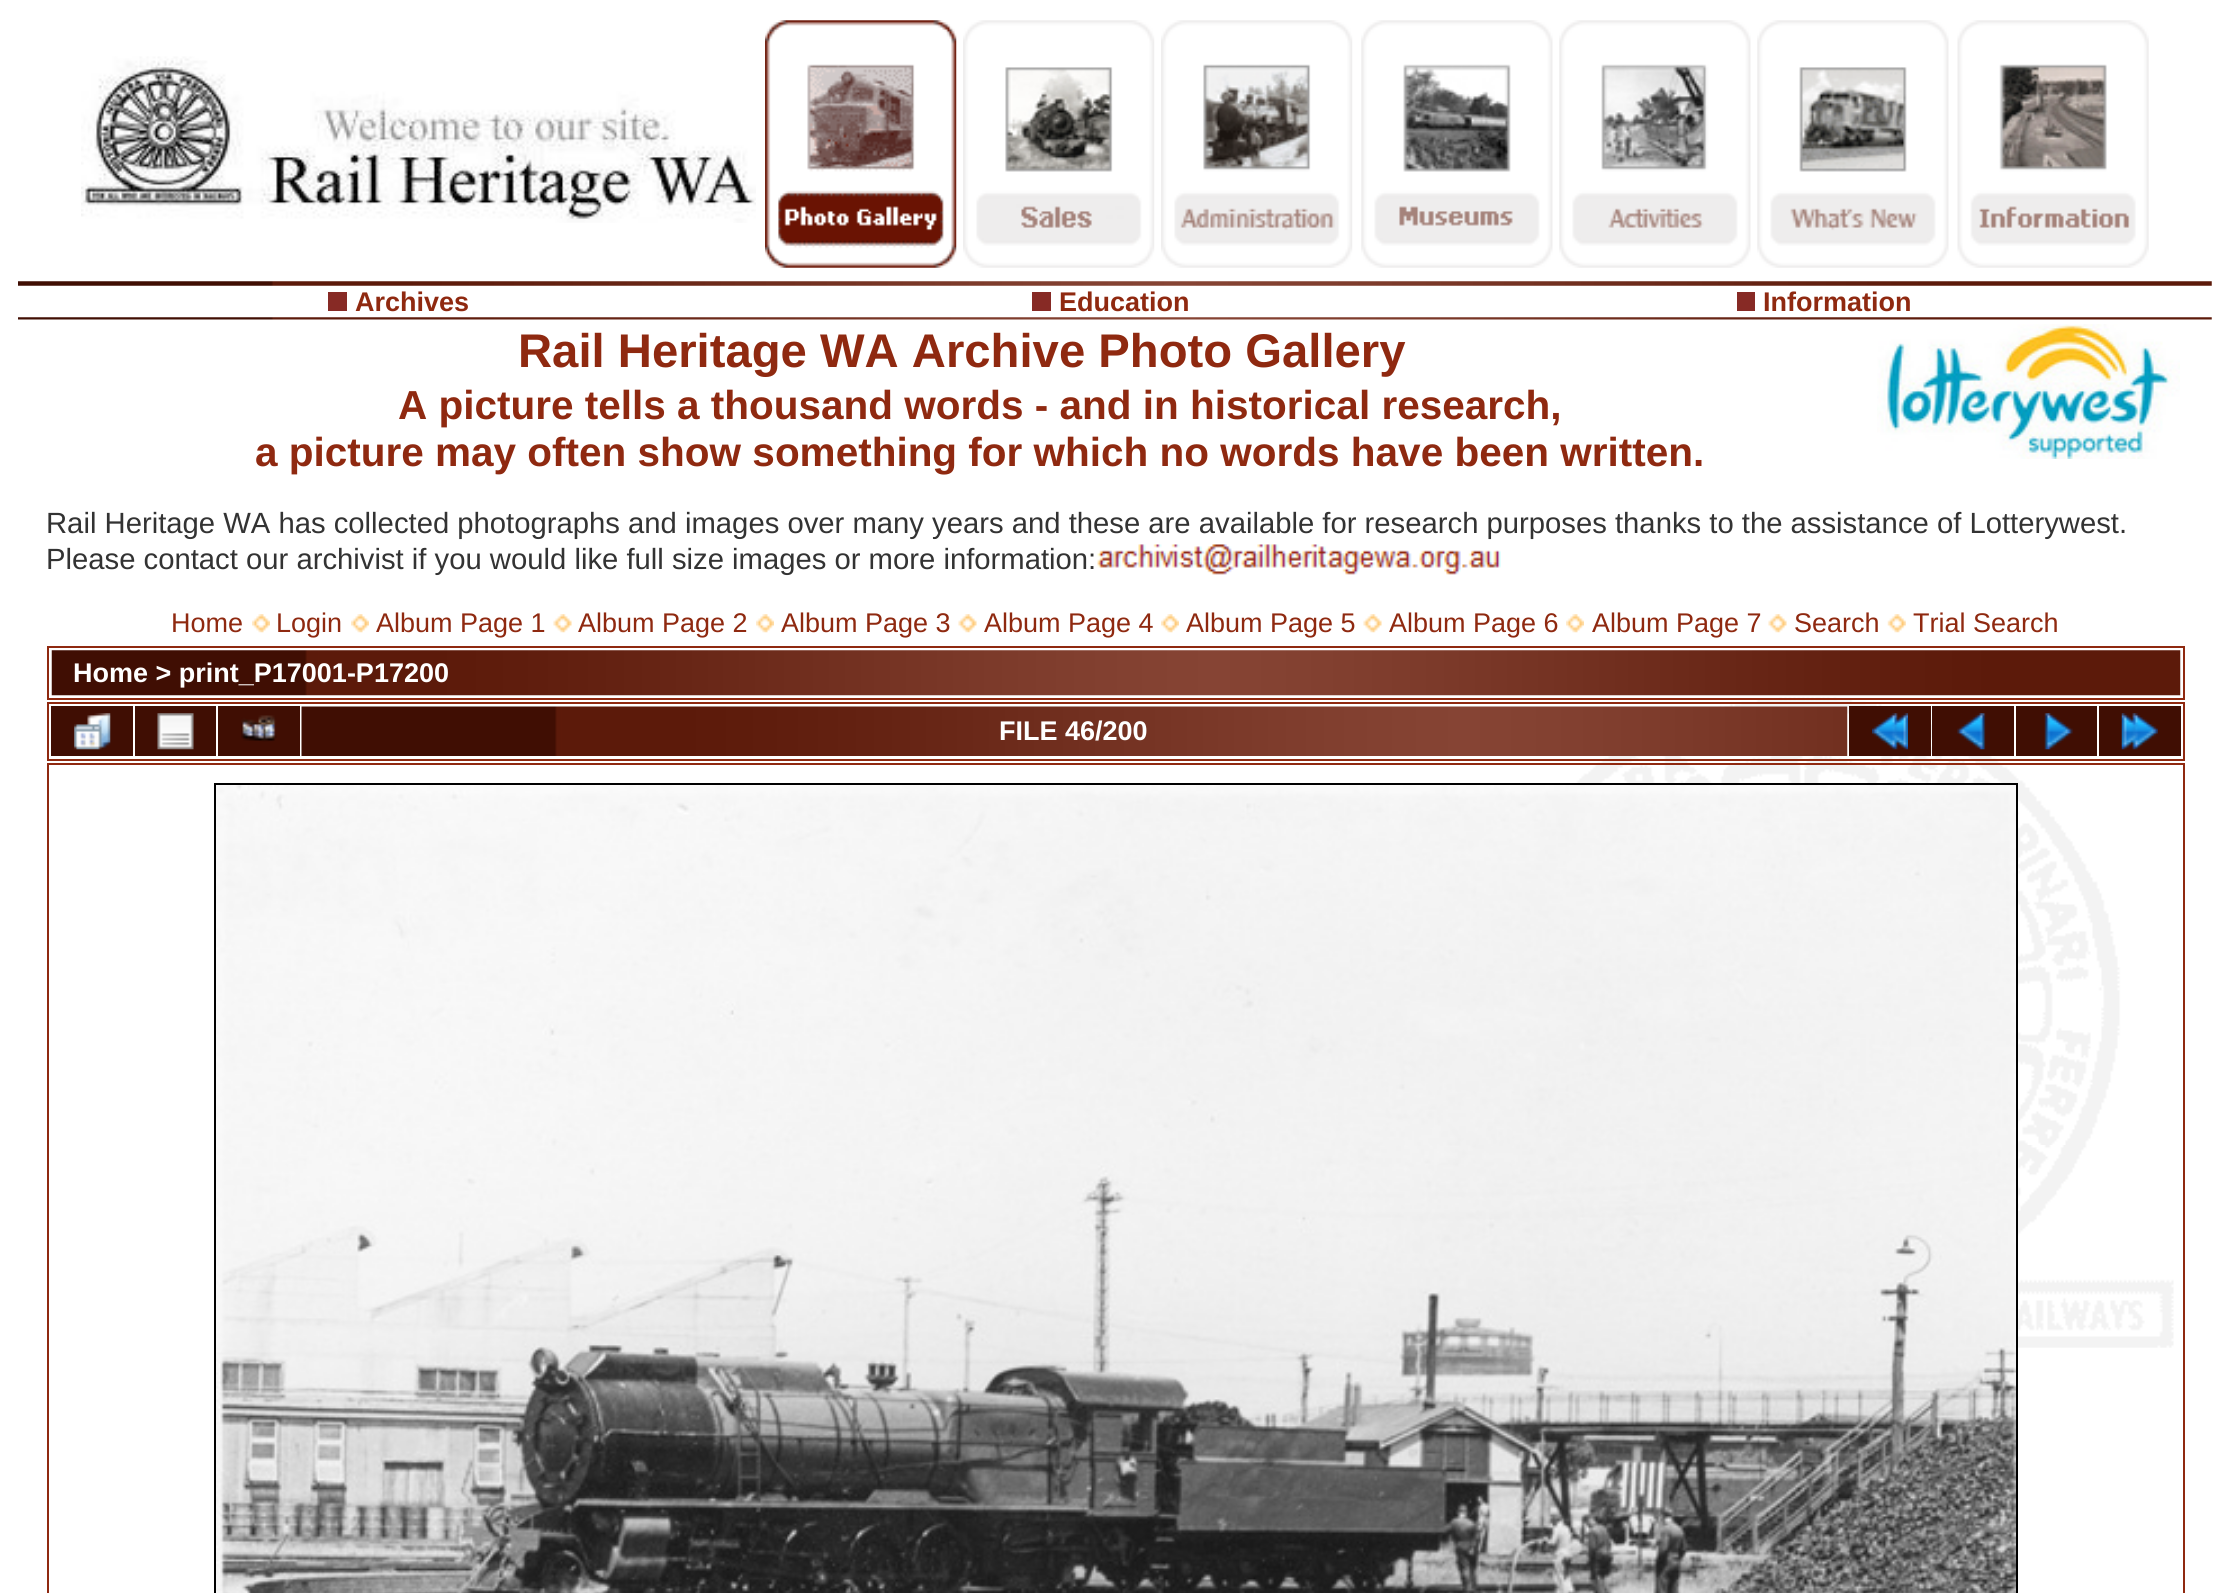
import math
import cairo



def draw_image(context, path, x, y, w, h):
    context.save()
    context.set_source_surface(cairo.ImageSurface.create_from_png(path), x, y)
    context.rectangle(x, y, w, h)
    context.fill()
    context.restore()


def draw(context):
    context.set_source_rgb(1, 1, 1)
    context.paint()
    draw_image(context, "images/1.png", 1428, 697, 746, 651)
    draw_image(context, "images/2.png", 81, 56, 675, 167)
    draw_image(context, "images/3.png", 765, 20, 192, 248)
    draw_image(context, "images/4.png", 963, 20, 192, 248)
    draw_image(context, "images/5.png", 1161, 20, 192, 248)
    draw_image(context, "images/6.png", 1361, 20, 192, 248)
    draw_image(context, "images/7.png", 1559, 20, 192, 248)
    draw_image(context, "images/8.png", 1757, 20, 192, 248)
    draw_image(context, "images/9.png", 1957, 20, 192, 248)
    draw_image(context, "images/10.png", 18, 281, 2194, 5)
    context.set_source_rgb(135 / 255, 42 / 255, 37 / 255)
    context.rectangle(328, 292, 19, 19)
    context.fill()
    context.rectangle(1032, 292, 19, 19)
    context.fill()
    context.rectangle(1737, 292, 18, 19)
    context.fill()
    draw_image(context, "images/11.png", 18, 317, 2194, 3)
    draw_image(context, "images/12.png", 1877, 324, 303, 135)
    draw_image(context, "images/13.png", 1097, 544, 404, 31)
    draw_image(context, "images/14.png", 252, 614, 18, 19)
    draw_image(context, "images/15.png", 351, 614, 18, 19)
    draw_image(context, "images/16.png", 553, 614, 19, 19)
    draw_image(context, "images/17.png", 756, 614, 18, 19)
    draw_image(context, "images/16.png", 958, 614, 19, 19)
    draw_image(context, "images/15.png", 1161, 614, 18, 19)
    draw_image(context, "images/16.png", 1363, 614, 19, 19)
    draw_image(context, "images/14.png", 1566, 614, 18, 19)
    draw_image(context, "images/18.png", 1768, 614, 19, 19)
    draw_image(context, "images/19.png", 1887, 614, 19, 19)
    context.rectangle(48, 647, 2136, 52)
    context.set_source_rgb(143 / 255, 41 / 255, 16 / 255)
    context.stroke()
    draw_image(context, "images/20.png", 51, 650, 2130, 46)
    context.rectangle(48, 703, 2136, 57)
    context.stroke()
    context.set_source_rgb(64 / 255, 14 / 255, 3 / 255)
    context.rectangle(51, 706, 82, 50)
    context.fill()
    draw_image(context, "images/21.png", 74, 713, 37, 37)
    context.rectangle(135, 706, 81, 50)
    context.fill()
    draw_image(context, "images/22.png", 157, 713, 37, 37)
    context.rectangle(218, 706, 82, 50)
    context.fill()
    draw_image(context, "images/23.png", 241, 715, 36, 27)
    draw_image(context, "images/24.png", 301, 706, 1547, 50)
    context.rectangle(1849, 706, 82, 50)
    context.fill()
    draw_image(context, "images/25.png", 1872, 713, 36, 37)
    context.rectangle(1932, 706, 82, 50)
    context.fill()
    draw_image(context, "images/26.png", 1957, 713, 29, 37)
    context.rectangle(2016, 706, 81, 50)
    context.fill()
    draw_image(context, "images/27.png", 2044, 713, 29, 37)
    context.rectangle(2099, 706, 82, 50)
    context.fill()
    draw_image(context, "images/28.png", 2121, 713, 37, 37)
    context.rectangle(48, 764, 2136, 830)
    context.set_source_rgb(143 / 255, 41 / 255, 16 / 255)
    context.stroke()
    context.rectangle(215, 784, 1802, 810)
    context.set_source_rgb(0, 0, 0)
    context.stroke()
    draw_image(context, "images/29.png", 216, 785, 1800, 808)
    context.select_font_face("Liberation Sans", cairo.FontSlant.NORMAL, cairo.FontWeight.BOLD)
    context.set_font_size(27)
    context.set_source_rgb(143 / 255, 41 / 255, 16 / 255)
    context.move_to(355, 311)
    context.show_text("Archives")
    context.move_to(1059, 311)
    context.show_text("Education")
    context.move_to(1763, 311)
    context.show_text("Information")
    context.set_font_size(47.25)
    context.move_to(518, 367)
    context.show_text("Rail Heritage WA Archive Photo Gallery")
    context.set_font_size(40.5)
    context.move_to(398, 419)
    context.show_text("A picture tells a thousand words - and in historical research,")
    context.move_to(255, 466)
    context.show_text("a picture may often show something for which no words have been written.")
    context.select_font_face("Liberation Sans")
    context.set_font_size(29.25)
    context.set_source_rgb(51 / 255, 51 / 255, 51 / 255)
    context.move_to(46, 533)
    context.show_text("Rail Heritage WA has collected photographs and images over many years and these are available for research purposes thanks to the assistance of Lotterywest.")
    context.move_to(46, 569)
    context.show_text("Please contact our archivist if you would like full size images or more information:")
    context.set_font_size(27)
    context.set_source_rgb(143 / 255, 41 / 255, 16 / 255)
    context.move_to(171, 632)
    context.show_text("Home")
    context.move_to(276, 632)
    context.show_text("Login")
    context.move_to(376, 632)
    context.show_text("Album Page 1")
    context.move_to(578, 632)
    context.show_text("Album Page 2")
    context.move_to(781, 632)
    context.show_text("Album Page 3")
    context.move_to(984, 632)
    context.show_text("Album Page 4")
    context.move_to(1186, 632)
    context.show_text("Album Page 5")
    context.move_to(1389, 632)
    context.show_text("Album Page 6")
    context.move_to(1592, 632)
    context.show_text("Album Page 7")
    context.move_to(1794, 632)
    context.show_text("Search")
    context.move_to(1913, 632)
    context.show_text("Trial Search")
    context.select_font_face("Liberation Sans", cairo.FontSlant.NORMAL, cairo.FontWeight.BOLD)
    context.set_source_rgb(1, 1, 1)
    context.move_to(73, 682)
    context.show_text("Home > print_P17001-P17200")
    context.move_to(999, 740)
    context.show_text("FILE 46/200")


surface = cairo.ImageSurface(cairo.Format.RGB24, 2228, 1593)
context = cairo.Context(surface)
options = cairo.FontOptions()
options.set_hint_metrics(cairo.HintMetrics.OFF)
options.set_hint_style(cairo.HintStyle.NONE)
context.set_font_options(options)
context.set_miter_limit(4)
draw(context)
surface.write_to_png("out.png")
